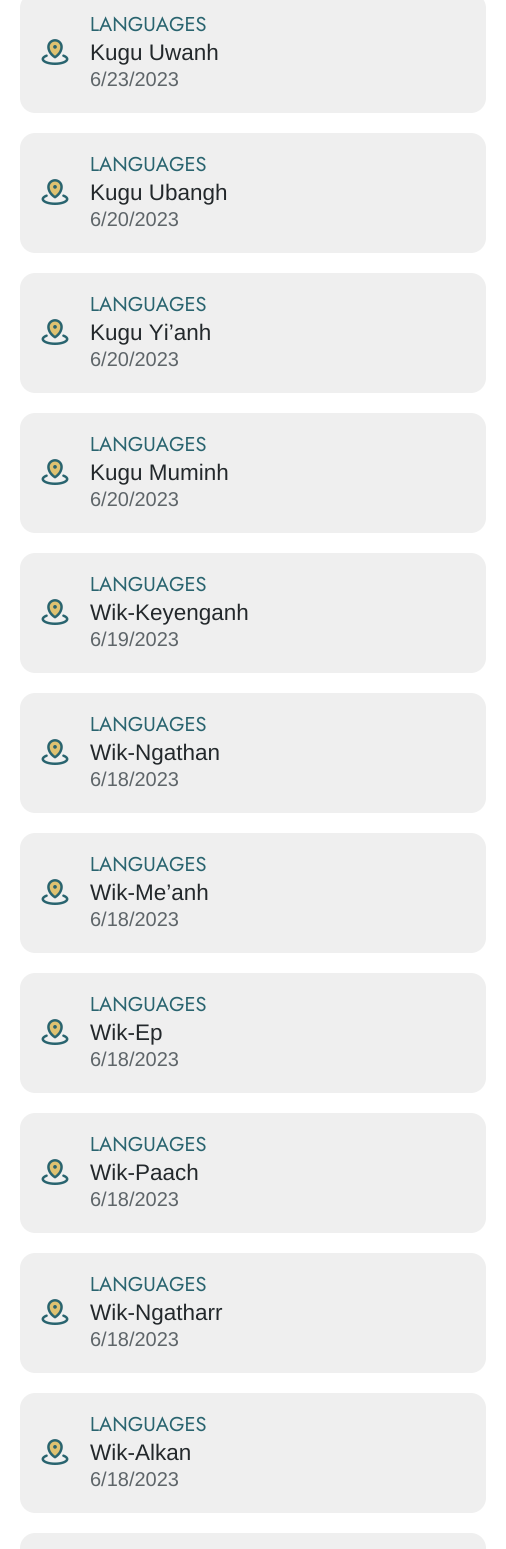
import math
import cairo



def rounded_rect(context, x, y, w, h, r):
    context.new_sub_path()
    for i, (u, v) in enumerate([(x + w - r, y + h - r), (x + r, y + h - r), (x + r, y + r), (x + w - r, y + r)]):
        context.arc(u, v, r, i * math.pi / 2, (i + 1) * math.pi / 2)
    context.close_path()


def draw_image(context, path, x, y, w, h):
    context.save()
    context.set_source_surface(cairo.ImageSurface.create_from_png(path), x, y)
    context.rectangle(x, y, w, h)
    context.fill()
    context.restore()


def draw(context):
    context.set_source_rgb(1, 1, 1)
    context.paint()
    context.set_source_rgb(239 / 255, 239 / 255, 239 / 255)
    rounded_rect(context, 20, -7, 466, 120, 15)
    context.fill()
    draw_image(context, "images/1.png", 41, 39, 28, 26)
    rounded_rect(context, 20, 133, 466, 120, 15)
    context.fill()
    draw_image(context, "images/1.png", 41, 179, 28, 26)
    rounded_rect(context, 20, 273, 466, 120, 15)
    context.fill()
    draw_image(context, "images/1.png", 41, 319, 28, 26)
    rounded_rect(context, 20, 413, 466, 120, 15)
    context.fill()
    draw_image(context, "images/1.png", 41, 459, 28, 26)
    rounded_rect(context, 20, 553, 466, 120, 15)
    context.fill()
    draw_image(context, "images/1.png", 41, 599, 28, 26)
    rounded_rect(context, 20, 693, 466, 120, 15)
    context.fill()
    draw_image(context, "images/1.png", 41, 739, 28, 26)
    rounded_rect(context, 20, 833, 466, 120, 15)
    context.fill()
    draw_image(context, "images/1.png", 41, 879, 28, 26)
    rounded_rect(context, 20, 973, 466, 120, 15)
    context.fill()
    draw_image(context, "images/1.png", 41, 1019, 28, 26)
    rounded_rect(context, 20, 1113, 466, 120, 15)
    context.fill()
    draw_image(context, "images/1.png", 41, 1159, 28, 26)
    rounded_rect(context, 20, 1253, 466, 120, 15)
    context.fill()
    draw_image(context, "images/1.png", 41, 1299, 28, 26)
    rounded_rect(context, 20, 1393, 466, 120, 15)
    context.fill()
    draw_image(context, "images/1.png", 41, 1439, 28, 26)
    rounded_rect(context, 20, 1533, 466, 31, 15)
    context.fill()
    context.select_font_face("Jost")
    context.set_font_size(20)
    context.set_source_rgb(41 / 255, 100 / 255, 111 / 255)
    context.move_to(90, 31)
    context.show_text("LANGUAGES")
    context.select_font_face("Liberation Sans")
    context.set_font_size(22.5)
    context.set_source_rgb(35 / 255, 40 / 255, 43 / 255)
    context.move_to(90, 60)
    context.show_text("Kugu Uwanh")
    context.set_font_size(20)
    context.set_source_rgb(94 / 255, 101 / 255, 105 / 255)
    context.move_to(90, 86)
    context.show_text("6/23/2023")
    context.select_font_face("Jost")
    context.set_source_rgb(41 / 255, 100 / 255, 111 / 255)
    context.move_to(90, 171)
    context.show_text("LANGUAGES")
    context.select_font_face("Liberation Sans")
    context.set_font_size(22.5)
    context.set_source_rgb(35 / 255, 40 / 255, 43 / 255)
    context.move_to(90, 200)
    context.show_text("Kugu Ubangh")
    context.set_font_size(20)
    context.set_source_rgb(94 / 255, 101 / 255, 105 / 255)
    context.move_to(90, 226)
    context.show_text("6/20/2023")
    context.select_font_face("Jost")
    context.set_source_rgb(41 / 255, 100 / 255, 111 / 255)
    context.move_to(90, 311)
    context.show_text("LANGUAGES")
    context.select_font_face("Liberation Sans")
    context.set_font_size(22.5)
    context.set_source_rgb(35 / 255, 40 / 255, 43 / 255)
    context.move_to(90, 340)
    context.show_text("Kugu Yi’anh")
    context.set_font_size(20)
    context.set_source_rgb(94 / 255, 101 / 255, 105 / 255)
    context.move_to(90, 366)
    context.show_text("6/20/2023")
    context.select_font_face("Jost")
    context.set_source_rgb(41 / 255, 100 / 255, 111 / 255)
    context.move_to(90, 451)
    context.show_text("LANGUAGES")
    context.select_font_face("Liberation Sans")
    context.set_font_size(22.5)
    context.set_source_rgb(35 / 255, 40 / 255, 43 / 255)
    context.move_to(90, 480)
    context.show_text("Kugu Muminh")
    context.set_font_size(20)
    context.set_source_rgb(94 / 255, 101 / 255, 105 / 255)
    context.move_to(90, 506)
    context.show_text("6/20/2023")
    context.select_font_face("Jost")
    context.set_source_rgb(41 / 255, 100 / 255, 111 / 255)
    context.move_to(90, 591)
    context.show_text("LANGUAGES")
    context.select_font_face("Liberation Sans")
    context.set_font_size(22.5)
    context.set_source_rgb(35 / 255, 40 / 255, 43 / 255)
    context.move_to(90, 620)
    context.show_text("Wik-Keyenganh")
    context.set_font_size(20)
    context.set_source_rgb(94 / 255, 101 / 255, 105 / 255)
    context.move_to(90, 646)
    context.show_text("6/19/2023")
    context.select_font_face("Jost")
    context.set_source_rgb(41 / 255, 100 / 255, 111 / 255)
    context.move_to(90, 731)
    context.show_text("LANGUAGES")
    context.select_font_face("Liberation Sans")
    context.set_font_size(22.5)
    context.set_source_rgb(35 / 255, 40 / 255, 43 / 255)
    context.move_to(90, 760)
    context.show_text("Wik-Ngathan")
    context.set_font_size(20)
    context.set_source_rgb(94 / 255, 101 / 255, 105 / 255)
    context.move_to(90, 786)
    context.show_text("6/18/2023")
    context.select_font_face("Jost")
    context.set_source_rgb(41 / 255, 100 / 255, 111 / 255)
    context.move_to(90, 871)
    context.show_text("LANGUAGES")
    context.select_font_face("Liberation Sans")
    context.set_font_size(22.5)
    context.set_source_rgb(35 / 255, 40 / 255, 43 / 255)
    context.move_to(90, 900)
    context.show_text("Wik-Me’anh")
    context.set_font_size(20)
    context.set_source_rgb(94 / 255, 101 / 255, 105 / 255)
    context.move_to(90, 926)
    context.show_text("6/18/2023")
    context.select_font_face("Jost")
    context.set_source_rgb(41 / 255, 100 / 255, 111 / 255)
    context.move_to(90, 1011)
    context.show_text("LANGUAGES")
    context.select_font_face("Liberation Sans")
    context.set_font_size(22.5)
    context.set_source_rgb(35 / 255, 40 / 255, 43 / 255)
    context.move_to(90, 1040)
    context.show_text("Wik-Ep")
    context.set_font_size(20)
    context.set_source_rgb(94 / 255, 101 / 255, 105 / 255)
    context.move_to(90, 1066)
    context.show_text("6/18/2023")
    context.select_font_face("Jost")
    context.set_source_rgb(41 / 255, 100 / 255, 111 / 255)
    context.move_to(90, 1151)
    context.show_text("LANGUAGES")
    context.select_font_face("Liberation Sans")
    context.set_font_size(22.5)
    context.set_source_rgb(35 / 255, 40 / 255, 43 / 255)
    context.move_to(90, 1180)
    context.show_text("Wik-Paach")
    context.set_font_size(20)
    context.set_source_rgb(94 / 255, 101 / 255, 105 / 255)
    context.move_to(90, 1206)
    context.show_text("6/18/2023")
    context.select_font_face("Jost")
    context.set_source_rgb(41 / 255, 100 / 255, 111 / 255)
    context.move_to(90, 1291)
    context.show_text("LANGUAGES")
    context.select_font_face("Liberation Sans")
    context.set_font_size(22.5)
    context.set_source_rgb(35 / 255, 40 / 255, 43 / 255)
    context.move_to(90, 1320)
    context.show_text("Wik-Ngatharr")
    context.set_font_size(20)
    context.set_source_rgb(94 / 255, 101 / 255, 105 / 255)
    context.move_to(90, 1346)
    context.show_text("6/18/2023")
    context.select_font_face("Jost")
    context.set_source_rgb(41 / 255, 100 / 255, 111 / 255)
    context.move_to(90, 1431)
    context.show_text("LANGUAGES")
    context.select_font_face("Liberation Sans")
    context.set_font_size(22.5)
    context.set_source_rgb(35 / 255, 40 / 255, 43 / 255)
    context.move_to(90, 1460)
    context.show_text("Wik-Alkan")
    context.set_font_size(20)
    context.set_source_rgb(94 / 255, 101 / 255, 105 / 255)
    context.move_to(90, 1486)
    context.show_text("6/18/2023")


surface = cairo.ImageSurface(cairo.Format.RGB24, 506, 1549)
context = cairo.Context(surface)
options = cairo.FontOptions()
options.set_hint_metrics(cairo.HintMetrics.OFF)
options.set_hint_style(cairo.HintStyle.NONE)
context.set_font_options(options)
context.set_miter_limit(4)
draw(context)
surface.write_to_png("out.png")
